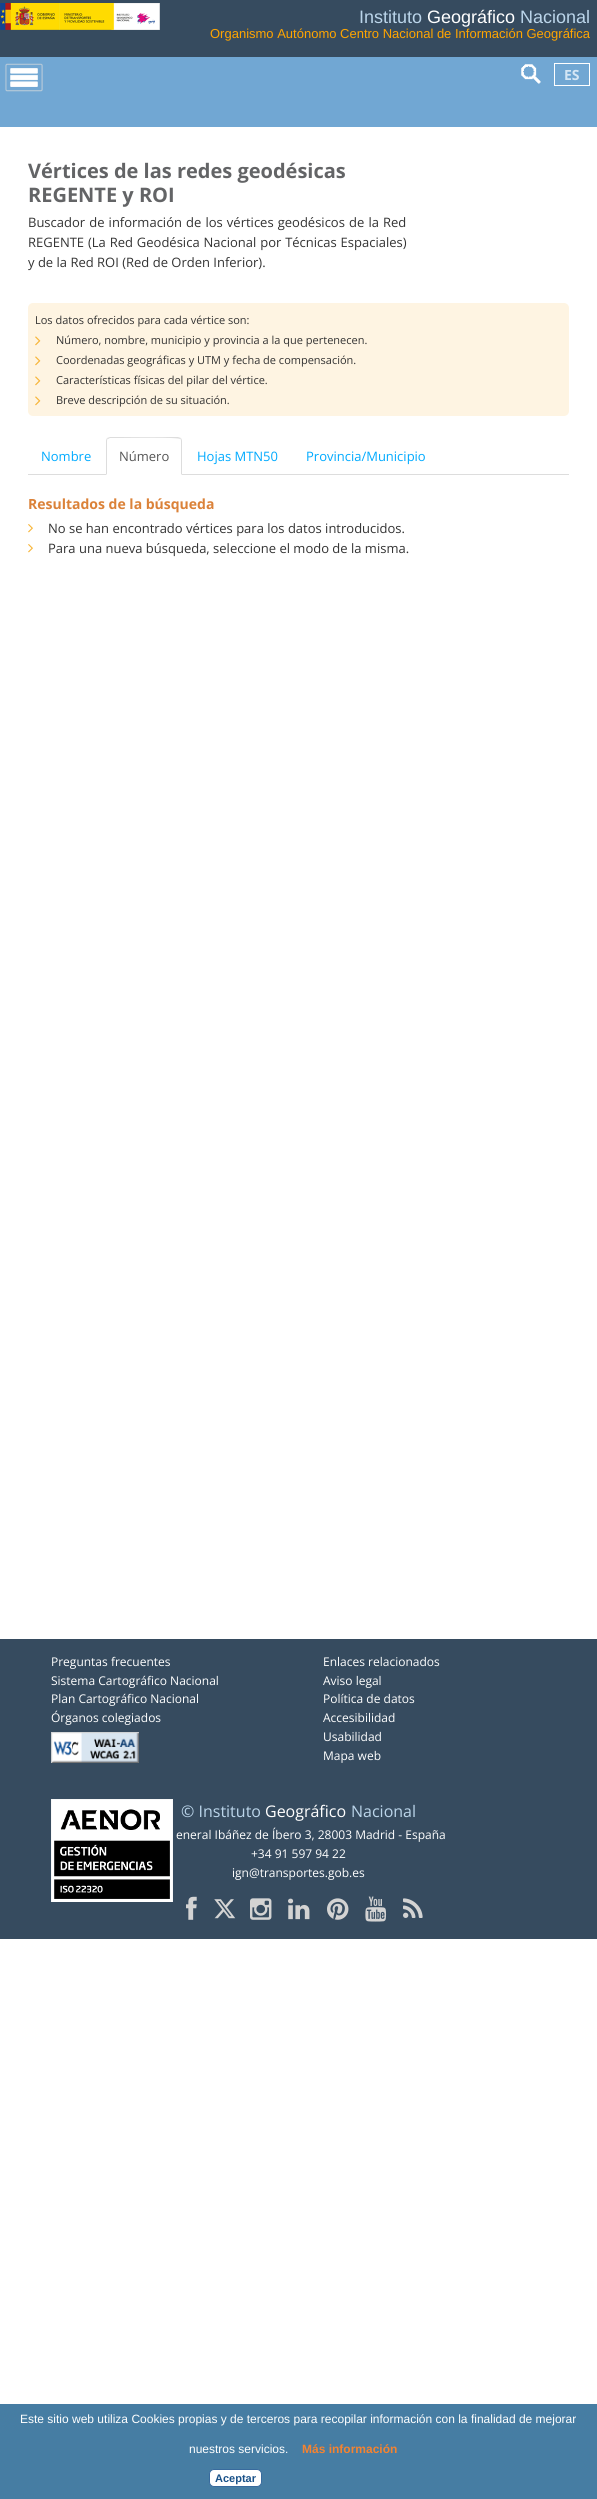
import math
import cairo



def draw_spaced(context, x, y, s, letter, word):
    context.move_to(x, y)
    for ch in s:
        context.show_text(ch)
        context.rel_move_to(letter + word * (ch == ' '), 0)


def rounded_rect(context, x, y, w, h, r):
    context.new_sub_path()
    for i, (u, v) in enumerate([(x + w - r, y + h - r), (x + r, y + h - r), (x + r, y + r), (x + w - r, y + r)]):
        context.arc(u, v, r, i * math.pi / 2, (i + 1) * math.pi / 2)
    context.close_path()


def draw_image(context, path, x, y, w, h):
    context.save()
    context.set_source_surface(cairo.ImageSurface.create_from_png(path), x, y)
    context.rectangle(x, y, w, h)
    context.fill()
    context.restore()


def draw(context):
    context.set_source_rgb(1, 1, 1)
    context.paint()
    context.set_source_rgb(54 / 255, 75 / 255, 95 / 255)
    context.rectangle(0, 0, 597, 57)
    context.fill()
    draw_image(context, "images/1.png", 0, 3, 160, 27)
    context.set_source_rgb(113 / 255, 167 / 255, 211 / 255)
    context.rectangle(0, 57, 597, 70)
    context.fill()
    draw_image(context, "images/2.png", 5, 63, 38, 29)
    draw_image(context, "images/3.png", 521, 64, 20, 20)
    context.rectangle(554.5, 63.5, 35, 22)
    context.set_source_rgb(1, 1, 1)
    context.set_line_width(1)
    context.stroke()
    context.set_source_rgb(254 / 255, 244 / 255, 226 / 255)
    rounded_rect(context, 28, 303, 541, 113, 5)
    context.fill()
    draw_image(context, "images/4.png", 35, 336, 6, 10)
    draw_image(context, "images/4.png", 35, 356, 6, 10)
    draw_image(context, "images/4.png", 35, 376, 6, 10)
    draw_image(context, "images/4.png", 35, 396, 6, 10)
    context.set_source_rgb(221 / 255, 221 / 255, 221 / 255)
    context.rectangle(28, 474, 541, 1)
    context.fill()
    context.set_source_rgb(1, 1, 1)
    context.new_path()
    context.move_to(110, 437)
    context.line_to(178, 437)
    context.curve_to(180, 437, 182, 439, 182, 441)
    context.line_to(182, 475)
    context.line_to(106, 475)
    context.line_to(106, 441)
    context.curve_to(106, 439, 108, 437, 110, 437)
    context.close_path()
    context.fill()
    context.set_source_rgb(221 / 255, 221 / 255, 221 / 255)
    context.new_path()
    context.move_to(110, 437)
    context.line_to(107, 438)
    context.line_to(108, 439)
    context.line_to(110, 438)
    context.line_to(121, 438)
    context.curve_to(128, 438, 178, 437, 180, 439)
    context.line_to(181, 438)
    context.line_to(178, 437)
    context.close_path()
    context.fill()
    context.new_path()
    context.move_to(182, 475)
    context.line_to(182, 441)
    context.curve_to(182, 440, 181.5, 439, 181, 438)
    context.line_to(180, 439)
    context.curve_to(181, 439, 181, 440, 181, 441)
    context.line_to(181, 474)
    context.close_path()
    context.fill()
    context.new_path()
    context.move_to(106, 475)
    context.line_to(107, 474)
    context.line_to(107, 441)
    context.curve_to(107, 440, 107, 439, 108, 439)
    context.line_to(107, 438)
    context.curve_to(106.5, 439, 106, 440, 106, 441)
    context.close_path()
    context.fill()
    draw_image(context, "images/5.png", 28, 524, 5, 9)
    draw_image(context, "images/5.png", 28, 544, 5, 9)
    context.set_source_rgb(54 / 255, 75 / 255, 95 / 255)
    context.rectangle(0, 1639, 597, 300)
    context.fill()
    draw_image(context, "images/6.png", 51, 1732, 88, 31)
    draw_image(context, "images/7.png", 51, 1799, 122, 103)
    draw_image(context, "images/8.png", 186, 1896, 11, 24)
    draw_image(context, "images/9.png", 214, 1899, 22, 20)
    draw_image(context, "images/10.png", 250, 1898, 22, 22)
    draw_image(context, "images/11.png", 288, 1898, 22, 22)
    draw_image(context, "images/12.png", 327, 1898, 22, 22)
    draw_image(context, "images/13.png", 365, 1896, 22, 26)
    draw_image(context, "images/14.png", 403, 1898, 20, 20)
    context.set_source_rgb(70 / 255, 125 / 255, 163 / 255)
    context.rectangle(0, 2404, 597, 95)
    context.fill()
    context.set_source_rgb(1, 1, 1)
    rounded_rect(context, 209.5, 2469.5, 52, 17, 4.5)
    context.fill_preserve()
    context.set_source_rgb(56 / 255, 106 / 255, 157 / 255)
    context.stroke()
    context.select_font_face("Liberation Sans")
    context.set_font_size(18)
    context.set_source_rgb(187 / 255, 213 / 255, 234 / 255)
    context.move_to(359, 23)
    context.show_text("Instituto")
    context.set_source_rgb(1, 1, 1)
    context.move_to(427, 23)
    context.show_text("Geográfico")
    context.set_source_rgb(187 / 255, 213 / 255, 234 / 255)
    context.move_to(520, 23)
    context.show_text("Nacional")
    context.set_font_size(13)
    context.set_source_rgb(1, 165 / 255, 0)
    context.move_to(210, 38)
    context.show_text("Organismo Autónomo Centro Nacional de Información Geográfica")
    context.select_font_face("Open Sans", cairo.FontSlant.NORMAL, cairo.FontWeight.BOLD)
    context.set_font_size(14)
    context.set_source_rgb(212 / 255, 230 / 255, 245 / 255)
    context.move_to(564, 80)
    context.show_text("ES")
    context.set_font_size(20)
    context.set_source_rgb(99 / 255, 100 / 255, 102 / 255)
    context.move_to(28, 178)
    context.show_text("Vértices de las redes geodésicas")
    context.move_to(28, 202)
    context.show_text("REGENTE y ROI")
    context.select_font_face("Open Sans")
    context.set_font_size(13)
    context.set_source_rgb(51 / 255, 51 / 255, 51 / 255)
    draw_spaced(context, 28, 227, "Buscador de información de los vértices geodésicos de la Red", 0, 0.75)
    draw_spaced(context, 28, 247, "REGENTE (La Red Geodésica Nacional por Técnicas Espaciales)", 0, 0.5)
    context.move_to(28, 267)
    context.show_text("y de la Red ROI (Red de Orden Inferior).")
    context.set_font_size(11)
    context.move_to(35, 324)
    context.show_text("Los datos ofrecidos para cada vértice son:")
    context.move_to(56, 344)
    context.show_text("Número, nombre, municipio y provincia a la que pertenecen.")
    context.move_to(56, 364)
    context.show_text("Coordenadas geográficas y UTM y fecha de compensación.")
    context.move_to(56, 384)
    context.show_text("Características físicas del pilar del vértice.")
    context.move_to(56, 404)
    context.show_text("Breve descripción de su situación.")
    context.set_font_size(13)
    context.set_source_rgb(0, 170 / 255, 1)
    context.move_to(41, 461)
    context.show_text("Nombre")
    context.set_source_rgb(85 / 255, 85 / 255, 85 / 255)
    context.move_to(119, 461)
    context.show_text("Número")
    context.set_source_rgb(0, 170 / 255, 1)
    context.move_to(197, 461)
    context.show_text("Hojas MTN50")
    context.move_to(306, 461)
    context.show_text("Provincia/Municipio")
    context.select_font_face("Open Sans", cairo.FontSlant.NORMAL, cairo.FontWeight.BOLD)
    context.set_font_size(14)
    context.set_source_rgb(219 / 255, 130 / 255, 57 / 255)
    context.move_to(28, 509)
    context.show_text("Resultados de la búsqueda")
    context.select_font_face("Open Sans")
    context.set_font_size(13)
    context.set_source_rgb(51 / 255, 51 / 255, 51 / 255)
    context.move_to(48, 533)
    context.show_text("No se han encontrado vértices para los datos introducidos.")
    context.move_to(48, 553)
    context.show_text("Para una nueva búsqueda, seleccione el modo de la misma.")
    context.set_font_size(12)
    context.set_source_rgb(1, 1, 1)
    context.move_to(51, 1666)
    context.show_text("Preguntas frecuentes")
    context.move_to(51, 1685)
    context.show_text("Sistema Cartográfico Nacional")
    context.move_to(51, 1703)
    context.show_text("Plan Cartográfico Nacional")
    context.move_to(51, 1722)
    context.show_text("Órganos colegiados")
    context.move_to(323, 1666)
    context.show_text("Enlaces relacionados")
    context.move_to(323, 1685)
    context.show_text("Aviso legal")
    context.move_to(323, 1703)
    context.show_text("Política de datos")
    context.move_to(323, 1722)
    context.show_text("Accesibilidad")
    context.move_to(323, 1741)
    context.show_text("Usabilidad")
    context.move_to(323, 1760)
    context.show_text("Mapa web")
    context.set_font_size(16)
    context.set_source_rgb(187 / 255, 213 / 255, 234 / 255)
    context.move_to(181, 1817)
    context.show_text("© Instituto")
    context.set_source_rgb(1, 1, 1)
    context.move_to(265, 1817)
    context.show_text("Geográfico")
    context.set_source_rgb(187 / 255, 213 / 255, 234 / 255)
    context.move_to(351, 1817)
    context.show_text("Nacional")
    context.set_font_size(12)
    context.set_source_rgb(1, 1, 1)
    context.move_to(176, 1839)
    context.show_text("eneral Ibáñez de Íbero 3, 28003 Madrid - España")
    context.move_to(251, 1858)
    context.show_text("+34 91 597 94 22")
    context.move_to(232, 1877)
    context.show_text("ign@transportes.gob.es")
    context.select_font_face("Liberation Sans")
    context.move_to(20, 2423)
    context.show_text("Este sitio web utiliza Cookies propias y de terceros para recopilar información con la finalidad de mejorar")
    context.move_to(189, 2453)
    context.show_text("nuestros servicios.")
    context.select_font_face("Liberation Sans", cairo.FontSlant.NORMAL, cairo.FontWeight.BOLD)
    context.set_source_rgb(245 / 255, 131 / 255, 48 / 255)
    context.move_to(302, 2453)
    context.show_text("Más información")
    context.set_font_size(11)
    context.set_source_rgb(25 / 255, 81 / 255, 136 / 255)
    context.move_to(215, 2482)
    context.show_text("Aceptar")


surface = cairo.ImageSurface(cairo.Format.RGB24, 597, 2499)
context = cairo.Context(surface)
options = cairo.FontOptions()
options.set_hint_metrics(cairo.HintMetrics.OFF)
options.set_hint_style(cairo.HintStyle.NONE)
context.set_font_options(options)
context.set_miter_limit(4)
draw(context)
surface.write_to_png("out.png")
